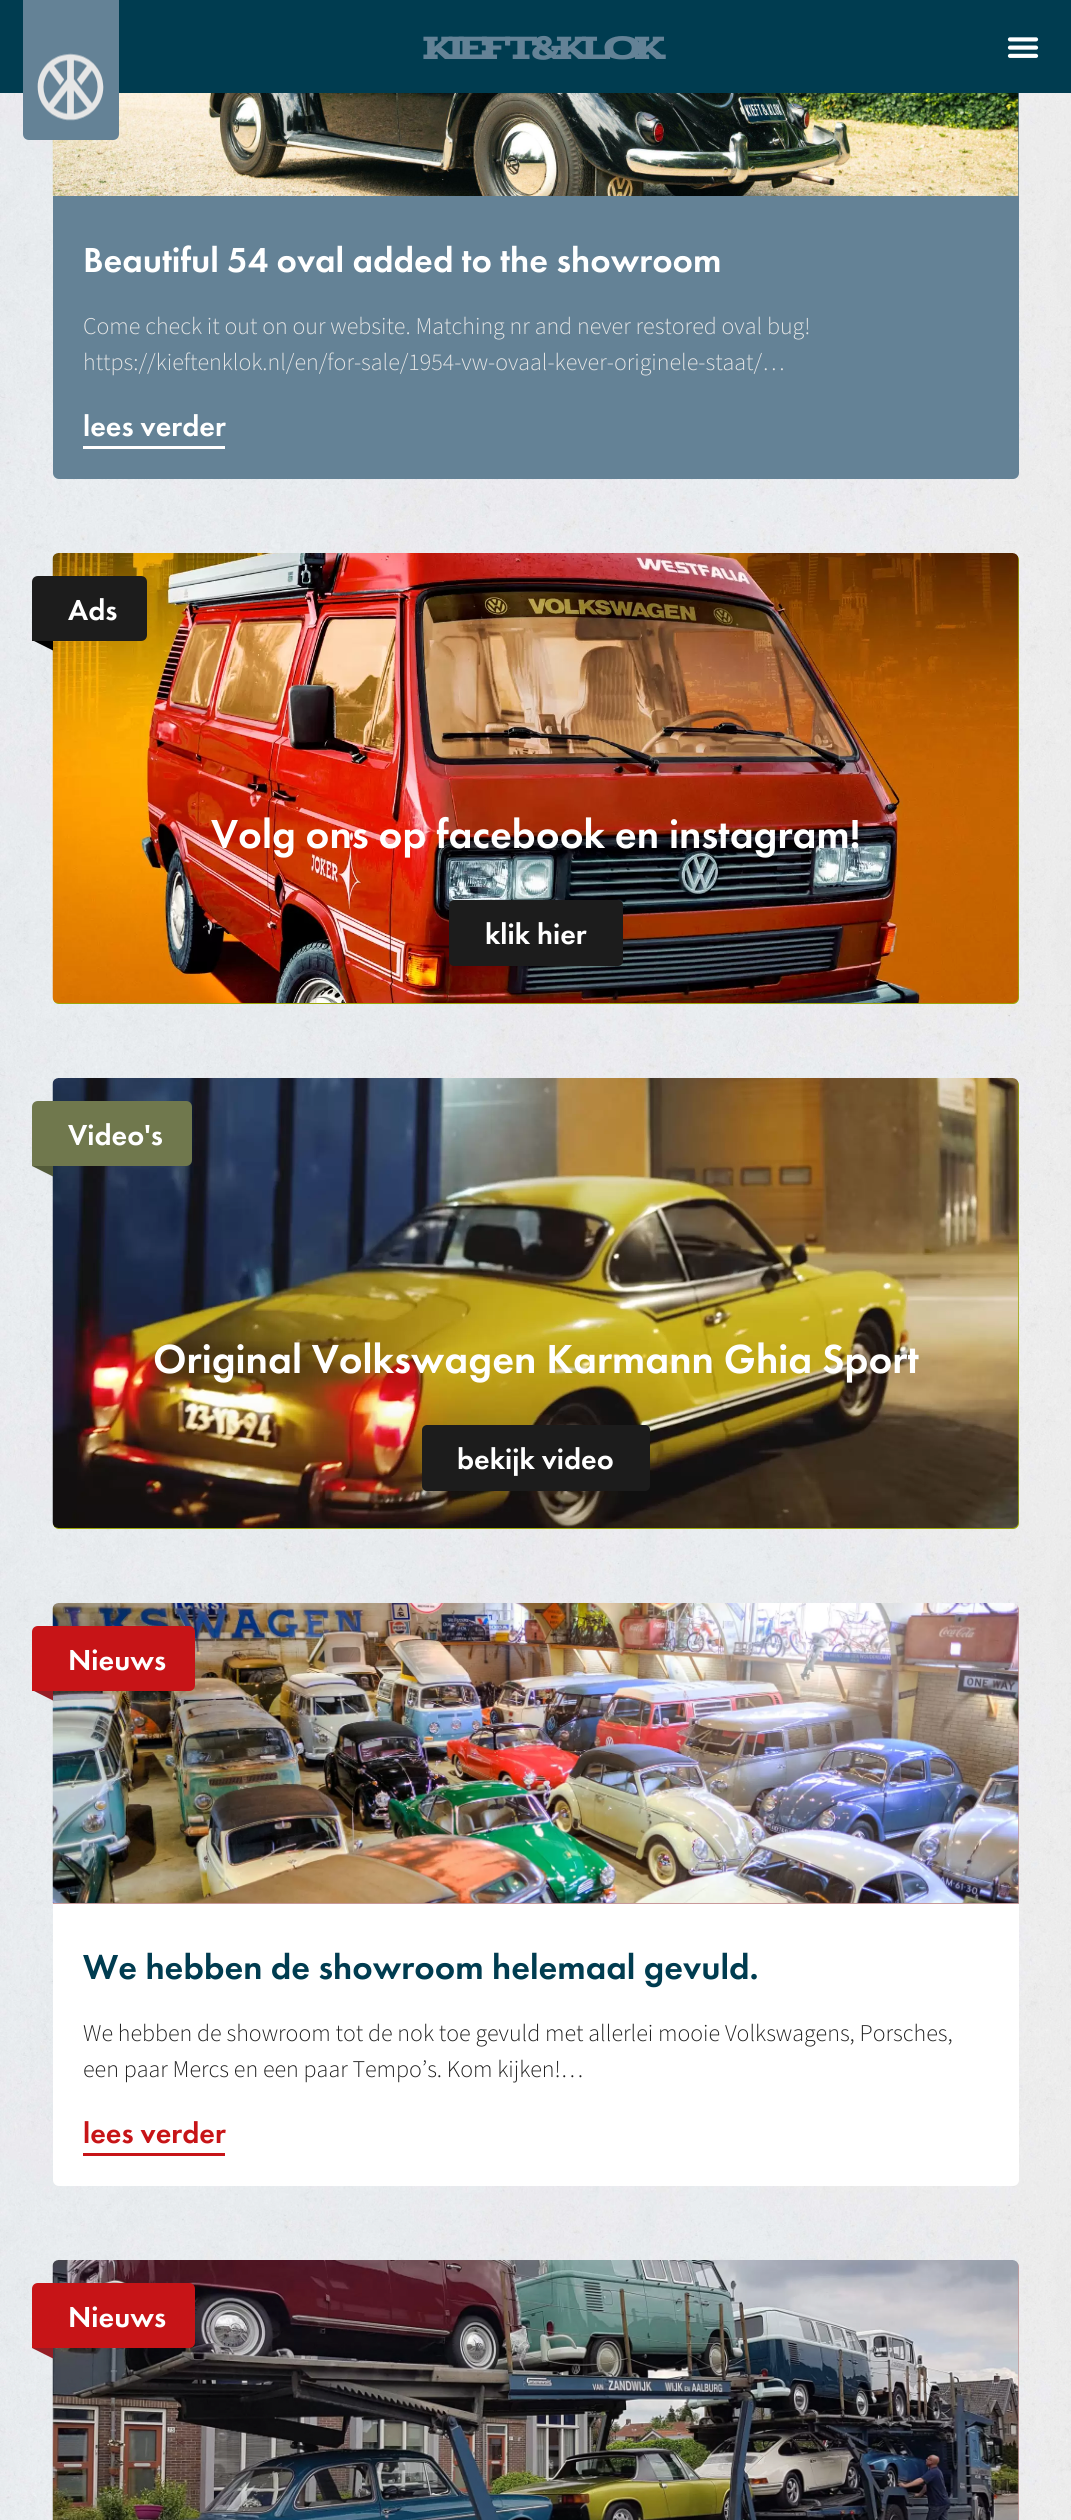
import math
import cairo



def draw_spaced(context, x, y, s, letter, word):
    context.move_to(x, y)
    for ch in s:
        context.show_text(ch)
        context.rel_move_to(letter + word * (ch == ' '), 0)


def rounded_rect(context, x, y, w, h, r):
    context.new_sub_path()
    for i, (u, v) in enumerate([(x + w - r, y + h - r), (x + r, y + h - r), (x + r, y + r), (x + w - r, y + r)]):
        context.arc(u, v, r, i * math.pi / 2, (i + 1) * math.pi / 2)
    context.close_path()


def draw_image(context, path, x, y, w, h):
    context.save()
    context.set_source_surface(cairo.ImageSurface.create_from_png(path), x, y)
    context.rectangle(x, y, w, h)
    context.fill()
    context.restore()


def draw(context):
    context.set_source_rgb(1, 1, 1)
    context.paint()
    draw_image(context, "images/1.png", 0, 93, 1071, 2427)
    context.set_source_rgb(100 / 255, 130 / 255, 150 / 255)
    rounded_rect(context, 53, -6, 966, 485, 6)
    context.fill()
    context.set_source_rgb(0, 60 / 255, 80 / 255)
    context.rectangle(0, 0, 1071, 93)
    context.fill()
    draw_image(context, "images/4.png", 52, 93, 967, 103)
    context.set_source_rgb(100 / 255, 130 / 255, 150 / 255)
    context.new_path()
    context.move_to(23, -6)
    context.line_to(119, -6)
    context.line_to(119, 134)
    context.curve_to(119, 137.5, 116.5, 140, 113, 140)
    context.line_to(29, 140)
    context.curve_to(25.5, 140, 23, 137.5, 23, 134)
    context.close_path()
    context.fill()
    draw_image(context, "images/2.png", 37, 53, 67, 68)
    draw_image(context, "images/3.png", 1007, 37, 32, 21)
    context.set_source_rgb(1, 1, 1)
    context.rectangle(83, 446, 142, 3)
    context.fill()
    context.set_source_rgb(156 / 255, 168 / 255, 8 / 255)
    rounded_rect(context, 53, 554, 966, 450, 6)
    context.fill()
    draw_image(context, "images/5.png", 52, 553, 967, 450)
    context.set_source_rgb(28 / 255, 28 / 255, 28 / 255)
    context.new_path()
    context.move_to(38, 576)
    context.line_to(141, 576)
    context.curve_to(144.5, 576, 147, 578.5, 147, 582)
    context.line_to(147, 635)
    context.curve_to(147, 638.5, 144.5, 641, 141, 641)
    context.line_to(32, 641)
    context.line_to(32, 582)
    context.curve_to(32, 578.5, 34.5, 576, 38, 576)
    context.close_path()
    context.fill()
    context.save()
    context.rectangle(32, 641, 21, 15)
    context.clip()
    context.set_source_rgb(0, 0, 0)
    context.new_path()
    context.move_to(32, 640)
    context.line_to(332, 790)
    context.line_to(332, 640)
    context.close_path()
    context.fill()
    context.restore()
    rounded_rect(context, 449, 900, 174, 66, 5)
    context.fill()
    context.set_source_rgb(156 / 255, 168 / 255, 8 / 255)
    rounded_rect(context, 53, 1079, 966, 450, 6)
    context.fill()
    draw_image(context, "images/6.png", 52, 1078, 967, 450)
    context.set_source_rgb(112 / 255, 120 / 255, 77 / 255)
    context.new_path()
    context.move_to(38, 1101)
    context.line_to(186, 1101)
    context.curve_to(189.5, 1101, 192, 1103.5, 192, 1107)
    context.line_to(192, 1160)
    context.curve_to(192, 1163.5, 189.5, 1166, 186, 1166)
    context.line_to(32, 1166)
    context.line_to(32, 1107)
    context.curve_to(32, 1103.5, 34.5, 1101, 38, 1101)
    context.close_path()
    context.fill()
    context.save()
    context.rectangle(32, 1166, 21, 15)
    context.clip()
    context.set_source_rgb(83 / 255, 91 / 255, 57 / 255)
    context.new_path()
    context.move_to(32, 1166)
    context.line_to(332, 1316)
    context.line_to(332, 1166)
    context.close_path()
    context.fill()
    context.restore()
    context.set_source_rgb(28 / 255, 28 / 255, 28 / 255)
    rounded_rect(context, 422, 1425, 228, 66, 5)
    context.fill()
    context.set_source_rgb(1, 1, 1)
    rounded_rect(context, 53, 1604, 966, 582, 6)
    context.fill()
    context.set_source_rgb(200 / 255, 153 / 255, 154 / 255)
    context.new_path()
    context.move_to(59, 1604)
    context.line_to(1013, 1604)
    context.curve_to(1016.5, 1604, 1019, 1606.5, 1019, 1610)
    context.line_to(1019, 1904)
    context.line_to(53, 1904)
    context.line_to(53, 1610)
    context.curve_to(53, 1606.5, 55.5, 1604, 59, 1604)
    context.close_path()
    context.fill()
    draw_image(context, "images/7.png", 52, 1603, 967, 300)
    context.set_source_rgb(199 / 255, 20 / 255, 23 / 255)
    context.new_path()
    context.move_to(38, 1626)
    context.line_to(189, 1626)
    context.curve_to(192.5, 1626, 195, 1628.5, 195, 1632)
    context.line_to(195, 1685)
    context.curve_to(195, 1688.5, 192.5, 1691, 189, 1691)
    context.line_to(32, 1691)
    context.line_to(32, 1632)
    context.curve_to(32, 1628.5, 34.5, 1626, 38, 1626)
    context.close_path()
    context.fill()
    context.save()
    context.rectangle(32, 1691, 21, 15)
    context.clip()
    context.set_source_rgb(149 / 255, 30 / 255, 37 / 255)
    context.new_path()
    context.move_to(32, 1690)
    context.line_to(332, 1840)
    context.line_to(332, 1690)
    context.close_path()
    context.fill()
    context.restore()
    context.rectangle(83, 2153, 142, 3)
    context.fill()
    context.set_source_rgb(200 / 255, 153 / 255, 154 / 255)
    context.new_path()
    context.move_to(59, 2261)
    context.line_to(1013, 2261)
    context.curve_to(1016.5, 2261, 1019, 2263.5, 1019, 2267)
    context.line_to(1019, 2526)
    context.line_to(53, 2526)
    context.line_to(53, 2267)
    context.curve_to(53, 2263.5, 55.5, 2261, 59, 2261)
    context.close_path()
    context.fill()
    draw_image(context, "images/8.png", 52, 2260, 967, 260)
    context.set_source_rgb(199 / 255, 20 / 255, 23 / 255)
    context.new_path()
    context.move_to(38, 2283)
    context.line_to(189, 2283)
    context.curve_to(192.5, 2283, 195, 2285.5, 195, 2289)
    context.line_to(195, 2342)
    context.curve_to(195, 2345.5, 192.5, 2348, 189, 2348)
    context.line_to(32, 2348)
    context.line_to(32, 2289)
    context.curve_to(32, 2285.5, 34.5, 2283, 38, 2283)
    context.close_path()
    context.fill()
    context.save()
    context.rectangle(32, 2348, 21, 15)
    context.clip()
    context.set_source_rgb(149 / 255, 30 / 255, 37 / 255)
    context.new_path()
    context.move_to(32, 2348)
    context.line_to(332, 2498)
    context.line_to(332, 2348)
    context.close_path()
    context.fill()
    context.restore()
    context.select_font_face("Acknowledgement", cairo.FontSlant.NORMAL, cairo.FontWeight.BOLD)
    context.set_font_size(36)
    context.set_source_rgb(100 / 255, 130 / 255, 150 / 255)
    draw_spaced(context, 422, 59, "KIEFT&KLOK", -7.75, 0)
    context.select_font_face("Futura PT Medium")
    context.set_source_rgb(1, 1, 1)
    context.move_to(83, 272)
    context.show_text("Beautiful 54 oval added to the showroom")
    context.select_font_face("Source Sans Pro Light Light")
    context.set_font_size(24)
    context.set_source_rgb(230 / 255, 230 / 255, 230 / 255)
    context.move_to(83, 334)
    context.show_text("Come check it out on our website. Matching nr and never restored oval bug!")
    context.move_to(83, 370)
    context.show_text("https://kieftenklok.nl/en/for-sale/1954-vw-ovaal-kever-originele-staat/…")
    context.select_font_face("Futura PT Medium")
    context.set_font_size(30)
    context.set_source_rgb(1, 1, 1)
    context.move_to(83, 436)
    context.show_text("lees verder")
    context.move_to(68, 620)
    context.show_text("Ads")
    context.set_font_size(42)
    context.move_to(211, 848)
    context.show_text("Volg ons op facebook en instagram!")
    context.set_font_size(30)
    context.move_to(485, 944)
    context.show_text("klik hier")
    context.move_to(68, 1145)
    context.show_text("Video's")
    context.set_font_size(42)
    context.move_to(153, 1373)
    context.show_text("Original Volkswagen Karmann Ghia Sport")
    context.set_font_size(30)
    context.move_to(457, 1469)
    context.show_text("bekijk video")
    context.move_to(68, 1670)
    context.show_text("Nieuws")
    context.set_font_size(36)
    context.set_source_rgb(0, 60 / 255, 80 / 255)
    context.move_to(83, 1979)
    context.show_text("We hebben de showroom helemaal gevuld.")
    context.select_font_face("Source Sans Pro Light Light")
    context.set_font_size(24)
    context.set_source_rgb(28 / 255, 28 / 255, 28 / 255)
    context.move_to(83, 2041)
    context.show_text("We hebben de showroom tot de nok toe gevuld met allerlei mooie Volkswagens, Porsches,")
    context.move_to(83, 2077)
    context.show_text("een paar Mercs en een paar Tempo’s. Kom kijken!…")
    context.select_font_face("Futura PT Medium")
    context.set_font_size(30)
    context.set_source_rgb(199 / 255, 20 / 255, 23 / 255)
    context.move_to(83, 2143)
    context.show_text("lees verder")
    context.set_source_rgb(1, 1, 1)
    context.move_to(68, 2327)
    context.show_text("Nieuws")


surface = cairo.ImageSurface(cairo.Format.RGB24, 1071, 2520)
context = cairo.Context(surface)
options = cairo.FontOptions()
options.set_hint_metrics(cairo.HintMetrics.OFF)
options.set_hint_style(cairo.HintStyle.NONE)
context.set_font_options(options)
context.set_miter_limit(4)
draw(context)
surface.write_to_png("out.png")
